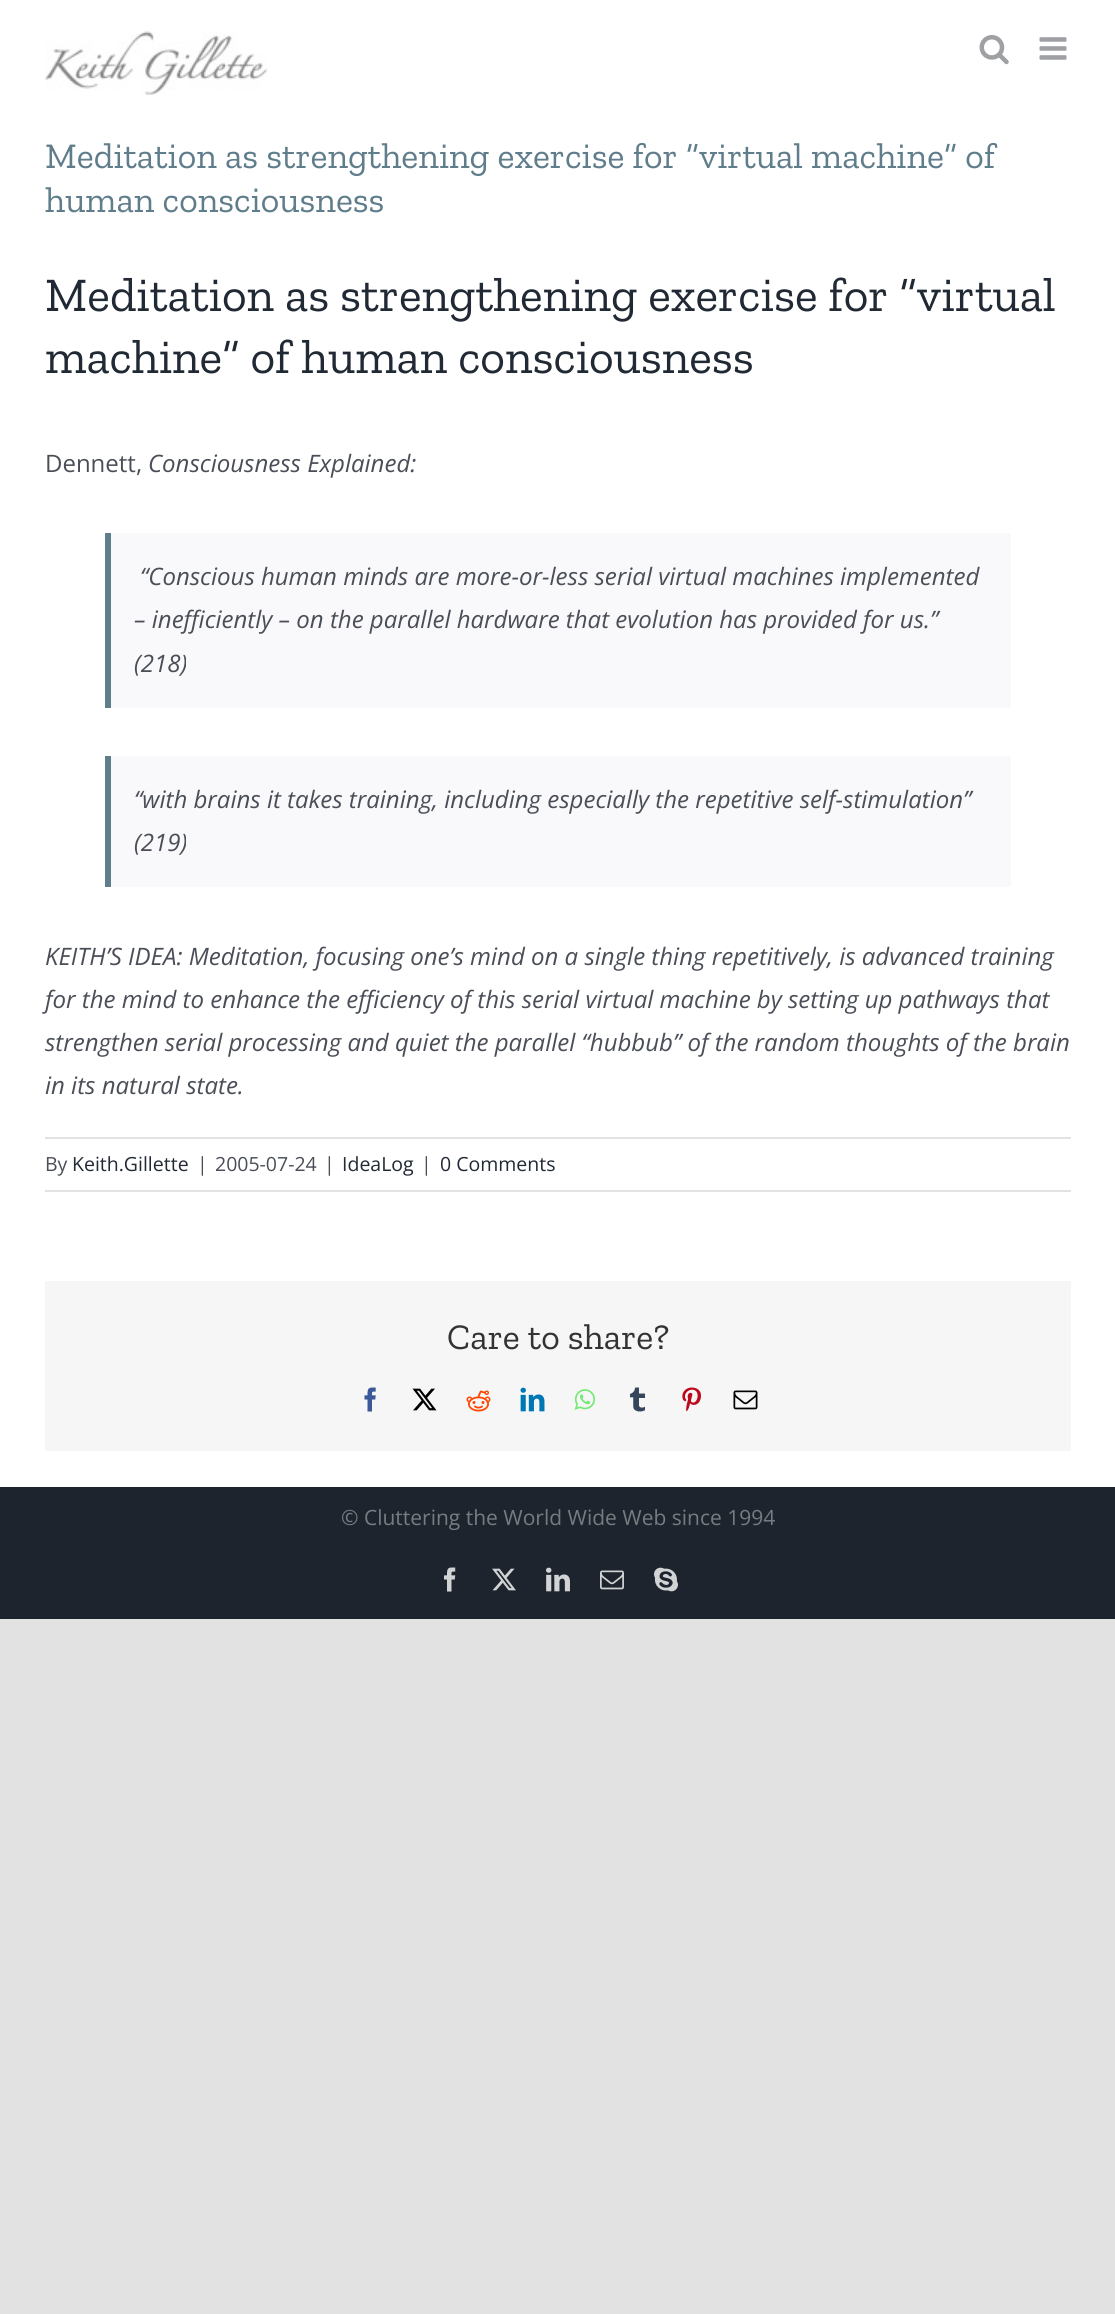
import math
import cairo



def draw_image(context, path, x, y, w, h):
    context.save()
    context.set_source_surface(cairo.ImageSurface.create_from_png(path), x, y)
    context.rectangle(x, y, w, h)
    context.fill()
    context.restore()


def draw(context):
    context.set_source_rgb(226 / 255, 226 / 255, 226 / 255)
    context.paint()
    context.set_source_rgb(1, 1, 1)
    context.rectangle(0, 0, 1115, 1487)
    context.fill()
    draw_image(context, "images/1.png", 45, 31, 223, 64)
    draw_image(context, "images/2.png", 979, 35, 30, 30)
    draw_image(context, "images/3.png", 1039, 37, 28, 23)
    context.set_source_rgb(249 / 255, 249 / 255, 251 / 255)
    context.rectangle(111, 533, 900, 175)
    context.fill()
    context.set_source_rgb(96 / 255, 125 / 255, 139 / 255)
    context.rectangle(105, 533, 6, 175)
    context.fill()
    context.set_source_rgb(249 / 255, 249 / 255, 251 / 255)
    context.rectangle(111, 756, 900, 131)
    context.fill()
    context.set_source_rgb(96 / 255, 125 / 255, 139 / 255)
    context.rectangle(105, 756, 6, 131)
    context.fill()
    context.set_source_rgb(226 / 255, 226 / 255, 226 / 255)
    context.rectangle(45, 1137, 1026, 2)
    context.fill()
    context.rectangle(45, 1190, 1026, 2)
    context.fill()
    context.set_source_rgb(246 / 255, 246 / 255, 246 / 255)
    context.rectangle(45, 1281, 1026, 170)
    context.fill()
    draw_image(context, "images/4.png", 364, 1387, 12, 25)
    draw_image(context, "images/5.png", 412, 1388, 25, 23)
    draw_image(context, "images/6.png", 466, 1390, 25, 22)
    draw_image(context, "images/7.png", 520, 1387, 25, 25)
    draw_image(context, "images/8.png", 574, 1389, 22, 21)
    draw_image(context, "images/9.png", 630, 1387, 15, 25)
    draw_image(context, "images/10.png", 682, 1387, 19, 25)
    draw_image(context, "images/11.png", 733, 1390, 25, 20)
    context.set_source_rgb(29 / 255, 36 / 255, 45 / 255)
    context.rectangle(0, 1487, 1115, 132)
    context.fill()
    draw_image(context, "images/12.png", 444, 1567, 12, 25)
    draw_image(context, "images/13.png", 492, 1568, 24, 23)
    draw_image(context, "images/14.png", 546, 1567, 24, 25)
    draw_image(context, "images/15.png", 600, 1570, 24, 20)
    draw_image(context, "images/16.png", 654, 1567, 24, 25)
    context.select_font_face("Zilla Slab")
    context.set_font_size(36)
    context.set_source_rgb(96 / 255, 125 / 255, 139 / 255)
    context.move_to(45, 168)
    context.show_text("Meditation as strengthening exercise for “virtual machine” of")
    context.move_to(45, 212)
    context.show_text("human consciousness")
    context.set_font_size(48)
    context.set_source_rgb(33 / 255, 41 / 255, 52 / 255)
    context.move_to(45, 311)
    context.show_text("Meditation as strengthening exercise for “virtual")
    context.move_to(45, 373)
    context.show_text("machine” of human consciousness")
    context.select_font_face("Open Sans")
    context.set_font_size(24)
    context.set_source_rgb(74 / 255, 78 / 255, 87 / 255)
    context.move_to(45, 472)
    context.show_text("Dennett,")
    context.select_font_face("Open Sans", cairo.FontSlant.ITALIC)
    context.move_to(148, 472)
    context.show_text("Consciousness Explained:")
    context.move_to(140, 585)
    context.show_text("“Conscious human minds are more-or-less serial virtual machines implemented")
    context.move_to(134, 628)
    context.show_text("– inefficiently – on the parallel hardware that evolution has provided for us.”")
    context.move_to(134, 672)
    context.show_text("(218)")
    context.move_to(134, 808)
    context.show_text("“with brains it takes training, including especially the repetitive self-stimulation”")
    context.move_to(134, 851)
    context.show_text("(219)")
    context.move_to(45, 965)
    context.show_text("KEITH’S IDEA: Meditation, focusing one’s mind on a single thing repetitively, is advanced training")
    context.move_to(45, 1008)
    context.show_text("for the mind to enhance the efficiency of this serial virtual machine by setting up pathways that")
    context.move_to(45, 1051)
    context.show_text("strengthen serial processing and quiet the parallel “hubbub” of the random thoughts of the brain")
    context.move_to(45, 1094)
    context.show_text("in its natural state.")
    context.select_font_face("Open Sans")
    context.set_font_size(19.5)
    context.move_to(45, 1171)
    context.show_text("By")
    context.set_source_rgb(33 / 255, 41 / 255, 52 / 255)
    context.move_to(72, 1171)
    context.show_text("Keith.Gillette")
    context.set_source_rgb(74 / 255, 78 / 255, 87 / 255)
    context.move_to(197, 1171)
    context.show_text("|")
    context.move_to(215, 1171)
    context.show_text("2005-07-24")
    context.move_to(324, 1171)
    context.show_text("|")
    context.set_source_rgb(33 / 255, 41 / 255, 52 / 255)
    context.move_to(342, 1171)
    context.show_text("IdeaLog")
    context.set_source_rgb(74 / 255, 78 / 255, 87 / 255)
    context.move_to(421, 1171)
    context.show_text("|")
    context.set_source_rgb(33 / 255, 41 / 255, 52 / 255)
    context.move_to(440, 1171)
    context.show_text("0 Comments")
    context.select_font_face("Zilla Slab")
    context.set_font_size(36)
    context.set_source_rgb(51 / 255, 51 / 255, 51 / 255)
    context.move_to(447, 1349)
    context.show_text("Care to share?")
    context.select_font_face("Open Sans")
    context.set_font_size(21)
    context.set_source_rgb(119 / 255, 124 / 255, 129 / 255)
    context.move_to(341, 1525)
    context.show_text("© Cluttering the World Wide Web since 1994")


surface = cairo.ImageSurface(cairo.Format.RGB24, 1115, 2314)
context = cairo.Context(surface)
options = cairo.FontOptions()
options.set_hint_metrics(cairo.HintMetrics.OFF)
options.set_hint_style(cairo.HintStyle.NONE)
context.set_font_options(options)
context.set_miter_limit(4)
draw(context)
surface.write_to_png("out.png")
